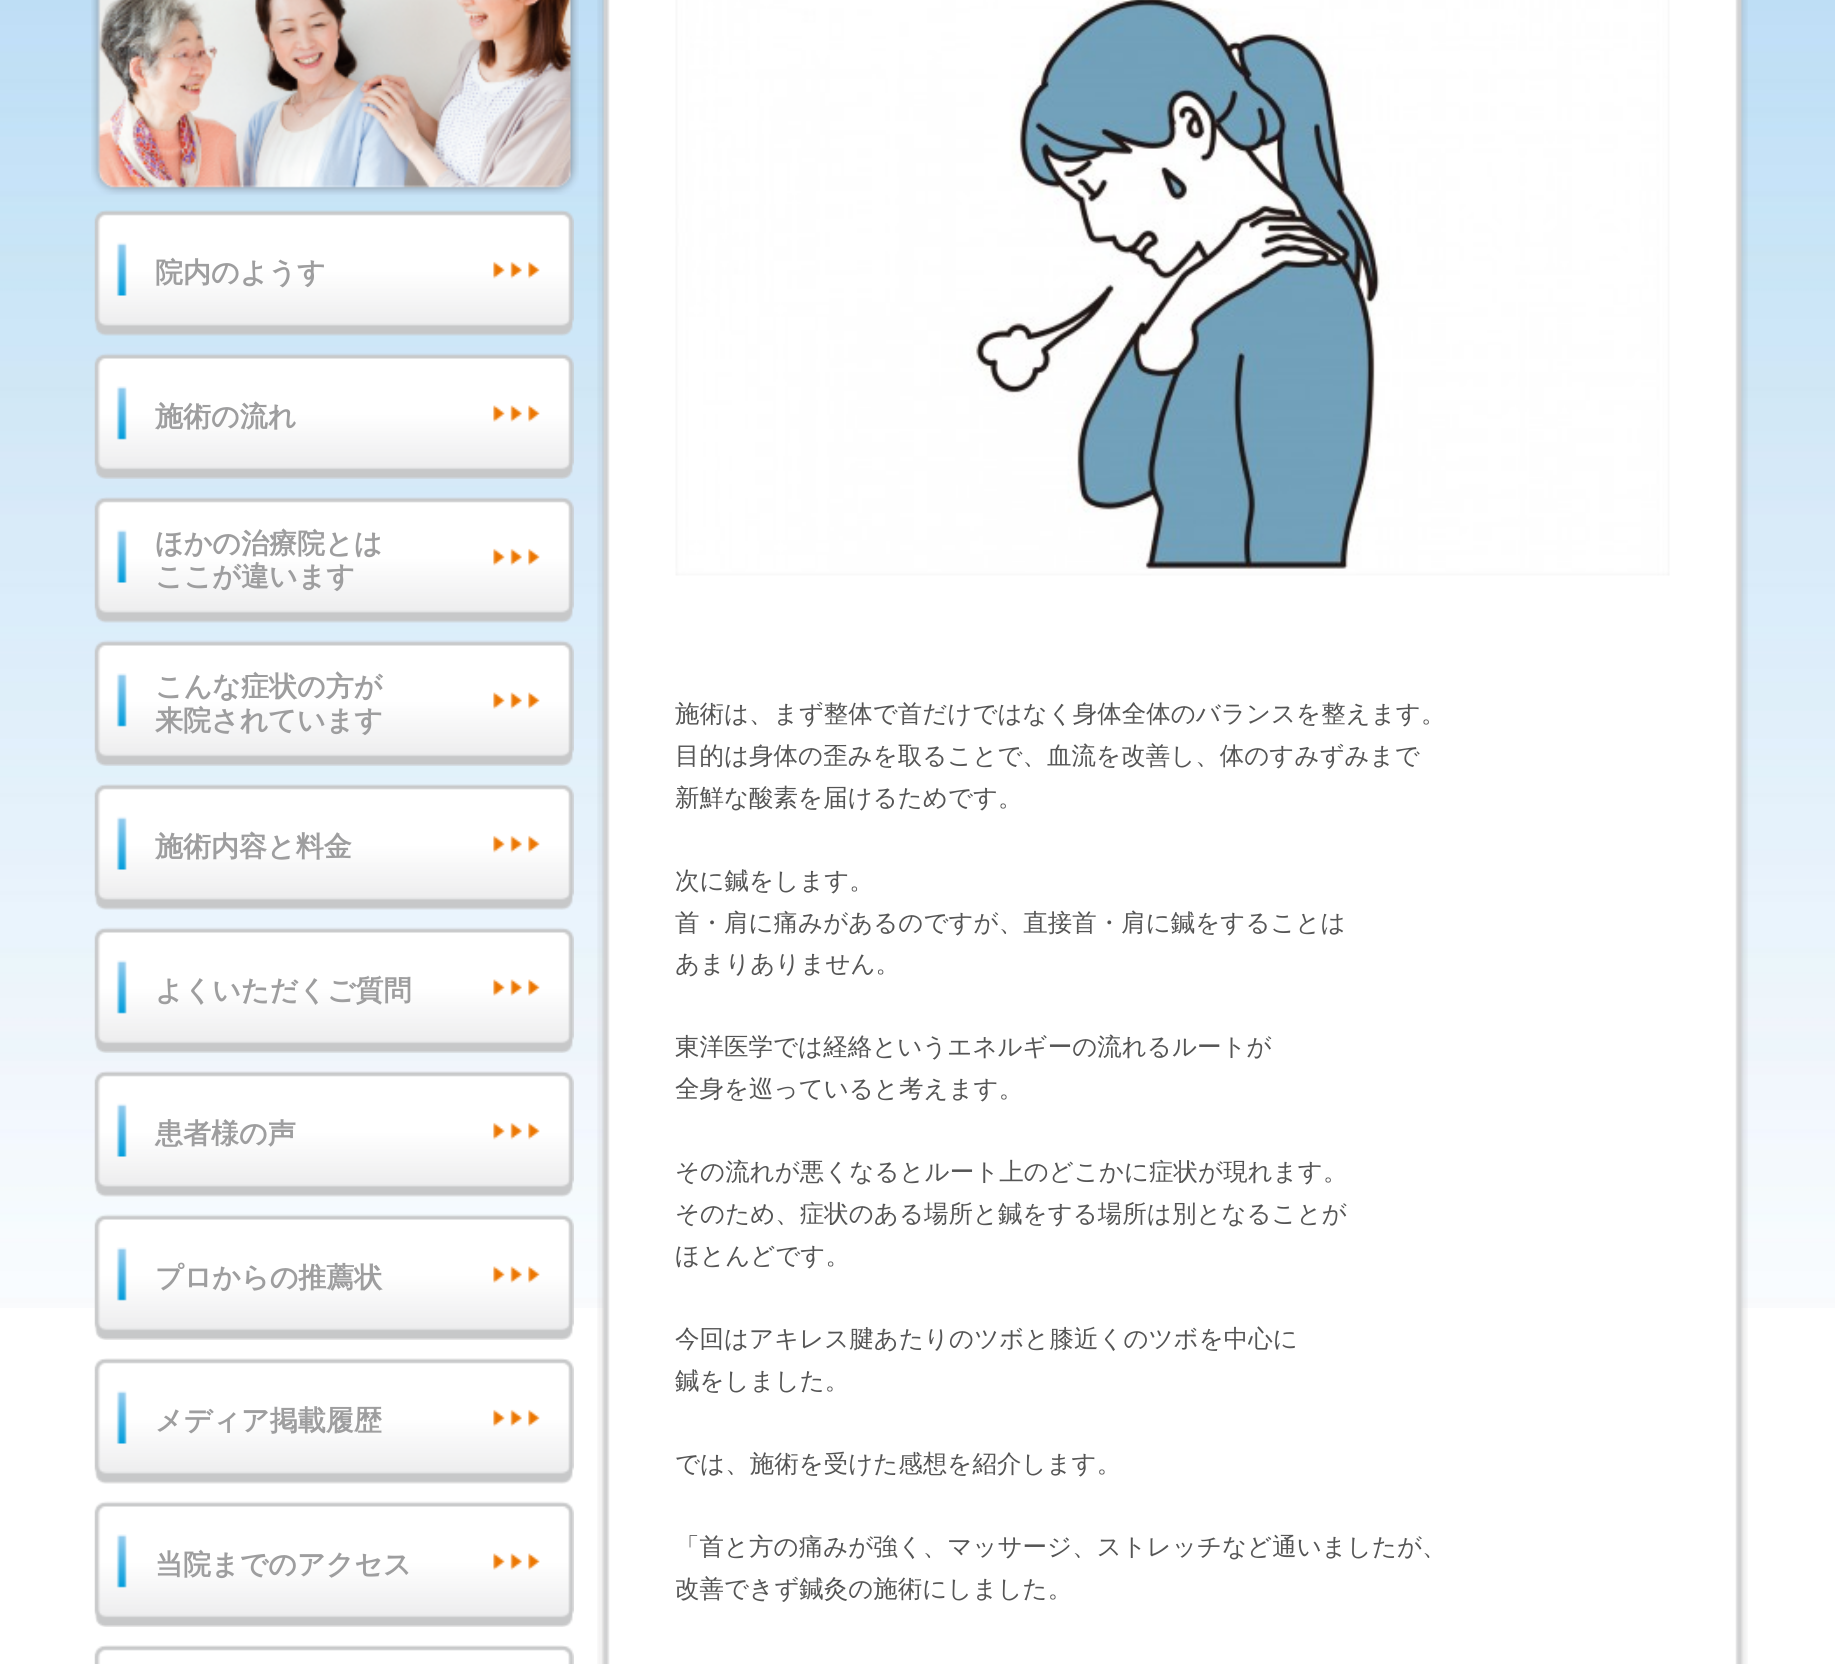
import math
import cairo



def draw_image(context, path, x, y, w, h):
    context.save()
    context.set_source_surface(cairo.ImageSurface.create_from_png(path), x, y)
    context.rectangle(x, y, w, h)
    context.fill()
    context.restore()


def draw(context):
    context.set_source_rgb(1, 1, 1)
    context.paint()
    draw_image(context, "images/1.png", 0, 0, 1835, 1308)
    draw_image(context, "images/2.png", 91, 0, 488, 195)
    draw_image(context, "images/3.png", 94, 210, 480, 126)
    draw_image(context, "images/4.png", 94, 353, 480, 126)
    draw_image(context, "images/5.png", 94, 497, 480, 126)
    draw_image(context, "images/6.png", 94, 640, 480, 126)
    draw_image(context, "images/7.png", 94, 784, 480, 126)
    draw_image(context, "images/8.png", 94, 927, 480, 126)
    draw_image(context, "images/9.png", 94, 1071, 480, 126)
    draw_image(context, "images/10.png", 94, 1214, 480, 126)
    draw_image(context, "images/11.png", 94, 1358, 480, 126)
    draw_image(context, "images/12.png", 94, 1501, 480, 126)
    draw_image(context, "images/13.png", 94, 1645, 480, 19)
    draw_image(context, "images/14.png", 597, 0, 1151, 1664)
    draw_image(context, "images/15.png", 675, 0, 995, 576)
    context.select_font_face("WenQuanYi Zen Hei", cairo.FontSlant.NORMAL, cairo.FontWeight.BOLD)
    context.set_font_size(28)
    context.set_source_rgb(158 / 255, 158 / 255, 159 / 255)
    context.move_to(155, 282)
    context.show_text("院内のようす")
    context.move_to(155, 426)
    context.show_text("施術の流れ")
    context.move_to(155, 553)
    context.show_text("ほかの治療院とは")
    context.move_to(155, 586)
    context.show_text("ここが違います")
    context.move_to(155, 696)
    context.show_text("こんな症状の方が")
    context.move_to(155, 730)
    context.show_text("来院されています")
    context.move_to(155, 856)
    context.show_text("施術内容と料金")
    context.move_to(155, 1000)
    context.show_text("よくいただくご質問")
    context.move_to(155, 1143)
    context.show_text("患者様の声")
    context.move_to(155, 1287)
    context.show_text("プロからの推薦状")
    context.move_to(155, 1430)
    context.show_text("メディア掲載履歴")
    context.move_to(155, 1574)
    context.show_text("当院までのアクセス")
    context.select_font_face("WenQuanYi Zen Hei Medium")
    context.set_font_size(24.5)
    context.set_source_rgb(85 / 255, 85 / 255, 85 / 255)
    context.move_to(675, 722)
    context.show_text("施術は、まず整体で首だけではなく身体全体のバランスを整えます。")
    context.move_to(675, 764)
    context.show_text("目的は身体の歪みを取ることで、血流を改善し、体のすみずみまで")
    context.move_to(675, 806)
    context.show_text("新鮮な酸素を届けるためです。")
    context.move_to(675, 889)
    context.show_text("次に鍼をします。")
    context.move_to(675, 931)
    context.show_text("首・肩に痛みがあるのですが、直接首・肩に鍼をすることは")
    context.move_to(675, 972)
    context.show_text("あまりありません。")
    context.move_to(675, 1055)
    context.show_text("東洋医学では経絡というエネルギーの流れるルートが")
    context.move_to(675, 1097)
    context.show_text("全身を巡っていると考えます。")
    context.move_to(675, 1180)
    context.show_text("その流れが悪くなるとルート上のどこかに症状が現れます。")
    context.move_to(675, 1222)
    context.show_text("そのため、症状のある場所と鍼をする場所は別となることが")
    context.move_to(675, 1264)
    context.show_text("ほとんどです。")
    context.move_to(675, 1347)
    context.show_text("今回はアキレス腱あたりのツボと膝近くのツボを中心に")
    context.move_to(675, 1389)
    context.show_text("鍼をしました。")
    context.move_to(675, 1472)
    context.show_text("では、施術を受けた感想を紹介します。")
    context.move_to(675, 1555)
    context.show_text("「首と方の痛みが強く、マッサージ、ストレッチなど通いましたが、")
    context.move_to(675, 1597)
    context.show_text("改善できず鍼灸の施術にしました。")


surface = cairo.ImageSurface(cairo.Format.RGB24, 1835, 1664)
context = cairo.Context(surface)
options = cairo.FontOptions()
options.set_hint_metrics(cairo.HintMetrics.OFF)
options.set_hint_style(cairo.HintStyle.NONE)
context.set_font_options(options)
context.set_miter_limit(4)
draw(context)
surface.write_to_png("out.png")
